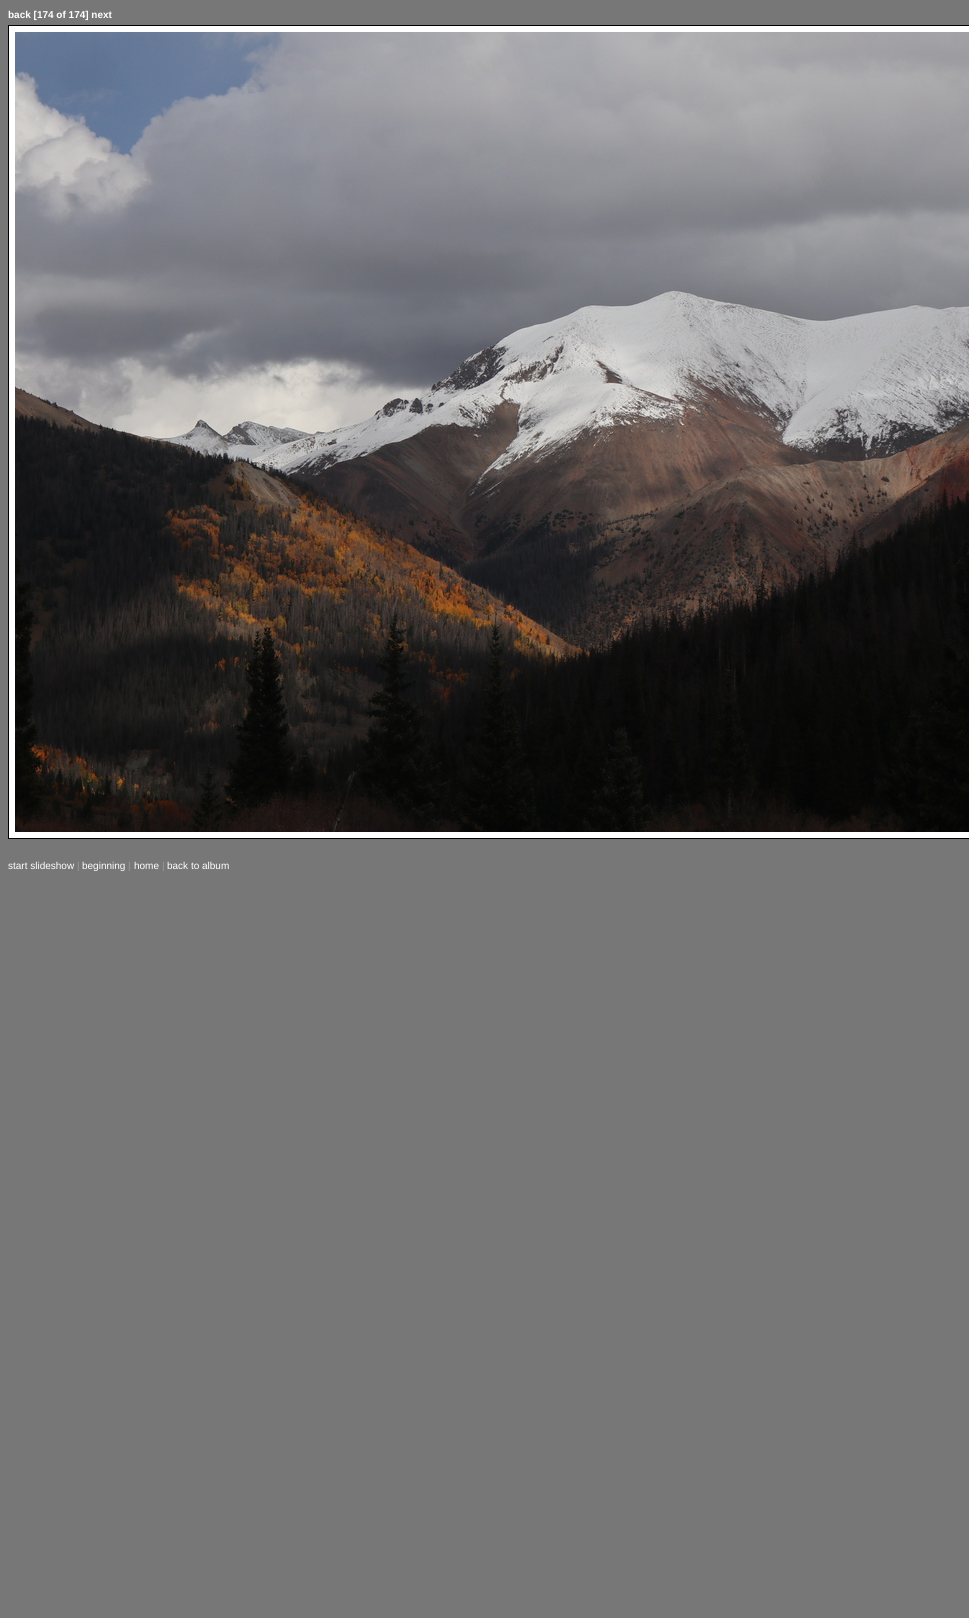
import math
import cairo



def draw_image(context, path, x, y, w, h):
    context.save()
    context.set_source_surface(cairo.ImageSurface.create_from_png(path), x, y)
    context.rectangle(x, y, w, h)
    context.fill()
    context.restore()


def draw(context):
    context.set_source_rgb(119 / 255, 119 / 255, 119 / 255)
    context.paint()
    context.set_source_rgb(1, 1, 1)
    context.rectangle(8.5, 25.5, 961, 813)
    context.fill_preserve()
    context.set_source_rgb(0, 0, 0)
    context.set_line_width(1)
    context.stroke()
    draw_image(context, "images/1.png", 15, 32, 954, 800)
    context.select_font_face("Liberation Sans", cairo.FontSlant.NORMAL, cairo.FontWeight.BOLD)
    context.set_font_size(10)
    context.set_source_rgb(1, 1, 1)
    context.move_to(8, 18)
    context.show_text("back [174 of 174] next")
    context.select_font_face("Liberation Sans")
    context.move_to(8, 869)
    context.show_text("start slideshow")
    context.set_source_rgb(153 / 255, 153 / 255, 153 / 255)
    context.move_to(77, 869)
    context.show_text("|")
    context.set_source_rgb(1, 1, 1)
    context.move_to(82, 869)
    context.show_text("beginning")
    context.set_source_rgb(153 / 255, 153 / 255, 153 / 255)
    context.move_to(128, 869)
    context.show_text("|")
    context.set_source_rgb(1, 1, 1)
    context.move_to(134, 869)
    context.show_text("home")
    context.set_source_rgb(153 / 255, 153 / 255, 153 / 255)
    context.move_to(162, 869)
    context.show_text("|")
    context.set_source_rgb(1, 1, 1)
    context.move_to(167, 869)
    context.show_text("back to album")


surface = cairo.ImageSurface(cairo.Format.RGB24, 969, 1618)
context = cairo.Context(surface)
options = cairo.FontOptions()
options.set_hint_metrics(cairo.HintMetrics.OFF)
options.set_hint_style(cairo.HintStyle.NONE)
context.set_font_options(options)
context.set_miter_limit(4)
draw(context)
surface.write_to_png("out.png")
